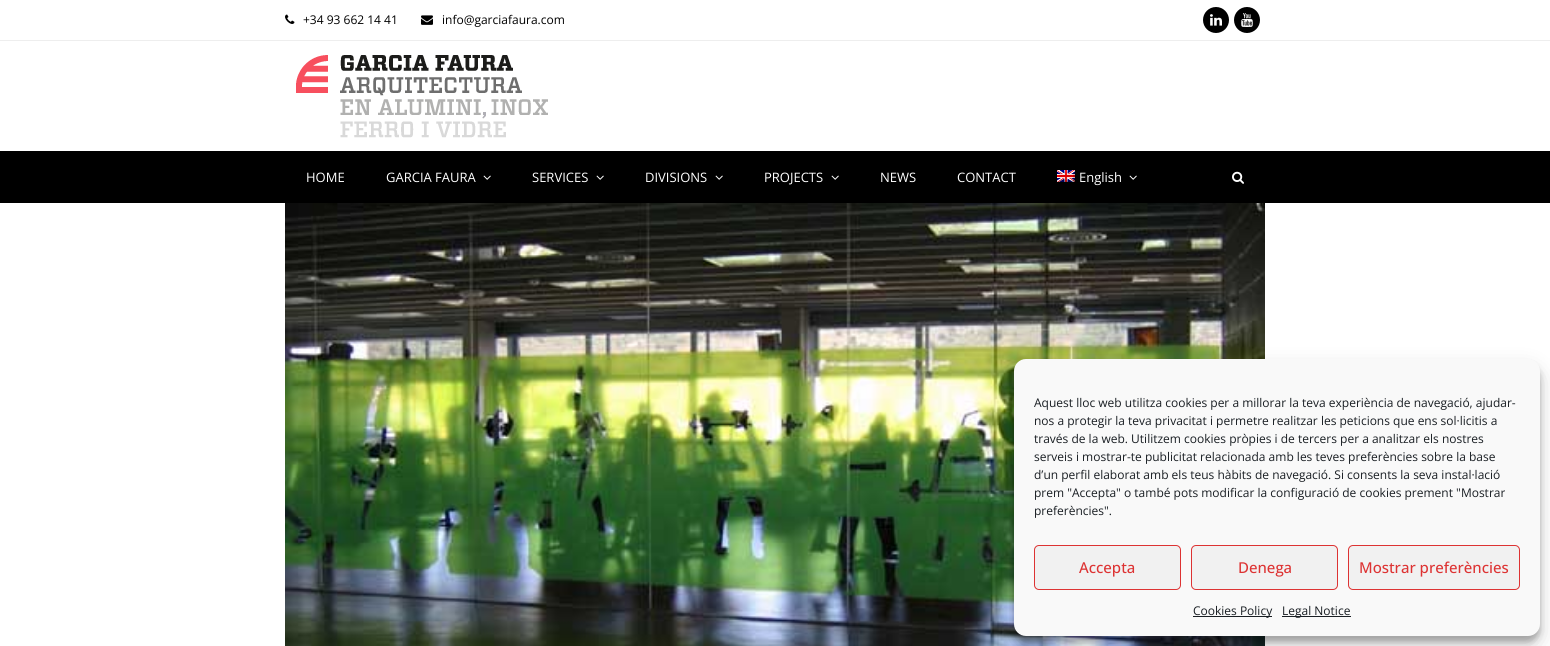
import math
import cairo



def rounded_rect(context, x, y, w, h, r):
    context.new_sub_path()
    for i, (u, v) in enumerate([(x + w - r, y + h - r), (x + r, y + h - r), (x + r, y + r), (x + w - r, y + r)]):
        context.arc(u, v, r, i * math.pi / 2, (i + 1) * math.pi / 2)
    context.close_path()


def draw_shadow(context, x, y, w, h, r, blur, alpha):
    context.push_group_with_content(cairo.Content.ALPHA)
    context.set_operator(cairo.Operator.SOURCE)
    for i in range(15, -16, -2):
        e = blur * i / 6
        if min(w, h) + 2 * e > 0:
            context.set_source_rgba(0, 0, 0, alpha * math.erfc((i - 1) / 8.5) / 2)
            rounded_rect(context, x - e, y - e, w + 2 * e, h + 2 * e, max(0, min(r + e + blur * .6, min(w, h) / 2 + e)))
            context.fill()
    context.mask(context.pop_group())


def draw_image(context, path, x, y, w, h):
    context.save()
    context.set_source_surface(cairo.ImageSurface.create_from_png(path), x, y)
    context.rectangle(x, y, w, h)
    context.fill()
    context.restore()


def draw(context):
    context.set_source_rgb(1, 1, 1)
    context.paint()
    context.set_source_rgb(238 / 255, 238 / 255, 238 / 255)
    context.rectangle(0, 40, 1550, 1)
    context.fill()
    draw_image(context, "images/1.png", 285, 14, 10, 10)
    draw_image(context, "images/2.png", 421, 15, 12, 10)
    context.set_source_rgb(0, 0, 0)
    context.arc(1216, 20, 13, 0, 2 * math.pi)
    context.fill()
    draw_image(context, "images/3.png", 1210, 14, 12, 12)
    context.arc(1247, 20, 13, 0, 2 * math.pi)
    context.fill()
    draw_image(context, "images/4.png", 1241, 13, 12, 14)
    draw_image(context, "images/5.png", 296, 55, 252, 83)
    context.rectangle(0, 151, 1550, 52)
    context.fill()
    draw_image(context, "images/6.png", 483, 175, 8, 5)
    draw_image(context, "images/6.png", 596, 175, 8, 5)
    draw_image(context, "images/6.png", 715, 175, 8, 5)
    draw_image(context, "images/6.png", 831, 175, 8, 5)
    draw_image(context, "images/7.png", 1057, 170, 18, 12)
    draw_image(context, "images/6.png", 1129, 175, 8, 5)
    draw_image(context, "images/8.png", 1232, 171, 12, 13)
    draw_image(context, "images/9.png", 285, 203, 980, 443)
    context.set_source_rgb(0, 0, 0)
    draw_shadow(context, 1014, 365, 526, 277, 12, 3, 0.23)
    draw_shadow(context, 1014, 369, 526, 277, 12, 10, 0.19)
    context.set_source_rgb(249 / 255, 249 / 255, 249 / 255)
    rounded_rect(context, 1014, 359, 526, 277, 12)
    context.fill()
    context.set_source_rgb(241 / 255, 241 / 255, 241 / 255)
    rounded_rect(context, 1034.5, 545.5, 146, 44, 4.5)
    context.fill_preserve()
    context.set_source_rgb(221 / 255, 51 / 255, 51 / 255)
    context.set_line_width(1)
    context.stroke()
    context.set_source_rgb(241 / 255, 241 / 255, 241 / 255)
    rounded_rect(context, 1191.5, 545.5, 146, 44, 4.5)
    context.fill_preserve()
    context.set_source_rgb(221 / 255, 51 / 255, 51 / 255)
    context.stroke()
    context.set_source_rgb(241 / 255, 241 / 255, 241 / 255)
    rounded_rect(context, 1348.5, 545.5, 171, 44, 4.5)
    context.fill_preserve()
    context.set_source_rgb(221 / 255, 51 / 255, 51 / 255)
    context.stroke()
    context.set_source_rgb(25 / 255, 30 / 255, 35 / 255)
    context.rectangle(1193, 616, 79, 1)
    context.fill()
    context.rectangle(1282, 616, 69, 1)
    context.fill()
    context.select_font_face("Open Sans")
    context.set_font_size(12)
    context.set_source_rgb(0, 0, 0)
    context.move_to(303, 24)
    context.show_text("+34 93 662 14 41")
    context.move_to(442, 24)
    context.show_text("info@garciafaura.com")
    context.set_font_size(13)
    context.set_source_rgb(1, 1, 1)
    context.move_to(306, 182)
    context.show_text("HOME")
    context.move_to(386, 182)
    context.show_text("GARCIA FAURA")
    context.move_to(532, 182)
    context.show_text("SERVICES")
    context.move_to(645, 182)
    context.show_text("DIVISIONS")
    context.move_to(764, 182)
    context.show_text("PROJECTS")
    context.move_to(880, 182)
    context.show_text("NEWS")
    context.move_to(957, 182)
    context.show_text("CONTACT")
    context.move_to(1079, 182)
    context.show_text("English")
    context.set_font_size(12)
    context.set_source_rgb(25 / 255, 30 / 255, 35 / 255)
    context.move_to(1034, 407)
    context.show_text("Aquest lloc web utilitza cookies per a millorar la teva experiència de navegació, ajudar-")
    context.move_to(1034, 425)
    context.show_text("nos a protegir la teva privacitat i permetre realitzar les peticions que ens sol·licitis a")
    context.move_to(1034, 443)
    context.show_text("través de la web. Utilitzem cookies pròpies i de tercers per a analitzar els nostres")
    context.move_to(1034, 461)
    context.show_text("serveis i mostrar-te publicitat relacionada amb les teves preferències sobre la base")
    context.move_to(1034, 479)
    context.show_text("d’un perfil elaborat amb els teus hàbits de navegació. Si consents la seva instal·lació")
    context.move_to(1034, 497)
    context.show_text("prem \"Accepta\" o també pots modificar la configuració de cookies prement \"Mostrar")
    context.move_to(1034, 515)
    context.show_text("preferències\".")
    context.select_font_face("Open Sans Medium")
    context.set_font_size(15)
    context.set_source_rgb(221 / 255, 51 / 255, 51 / 255)
    context.move_to(1079, 573)
    context.show_text("Accepta")
    context.move_to(1238, 573)
    context.show_text("Denega")
    context.move_to(1359, 573)
    context.show_text("Mostrar preferències")
    context.select_font_face("Open Sans")
    context.set_font_size(12)
    context.set_source_rgb(25 / 255, 30 / 255, 35 / 255)
    context.move_to(1193, 615)
    context.show_text("Cookies Policy")
    context.move_to(1282, 615)
    context.show_text("Legal Notice")


surface = cairo.ImageSurface(cairo.Format.RGB24, 1550, 646)
context = cairo.Context(surface)
options = cairo.FontOptions()
options.set_hint_metrics(cairo.HintMetrics.OFF)
options.set_hint_style(cairo.HintStyle.NONE)
context.set_font_options(options)
context.set_miter_limit(4)
draw(context)
surface.write_to_png("out.png")
